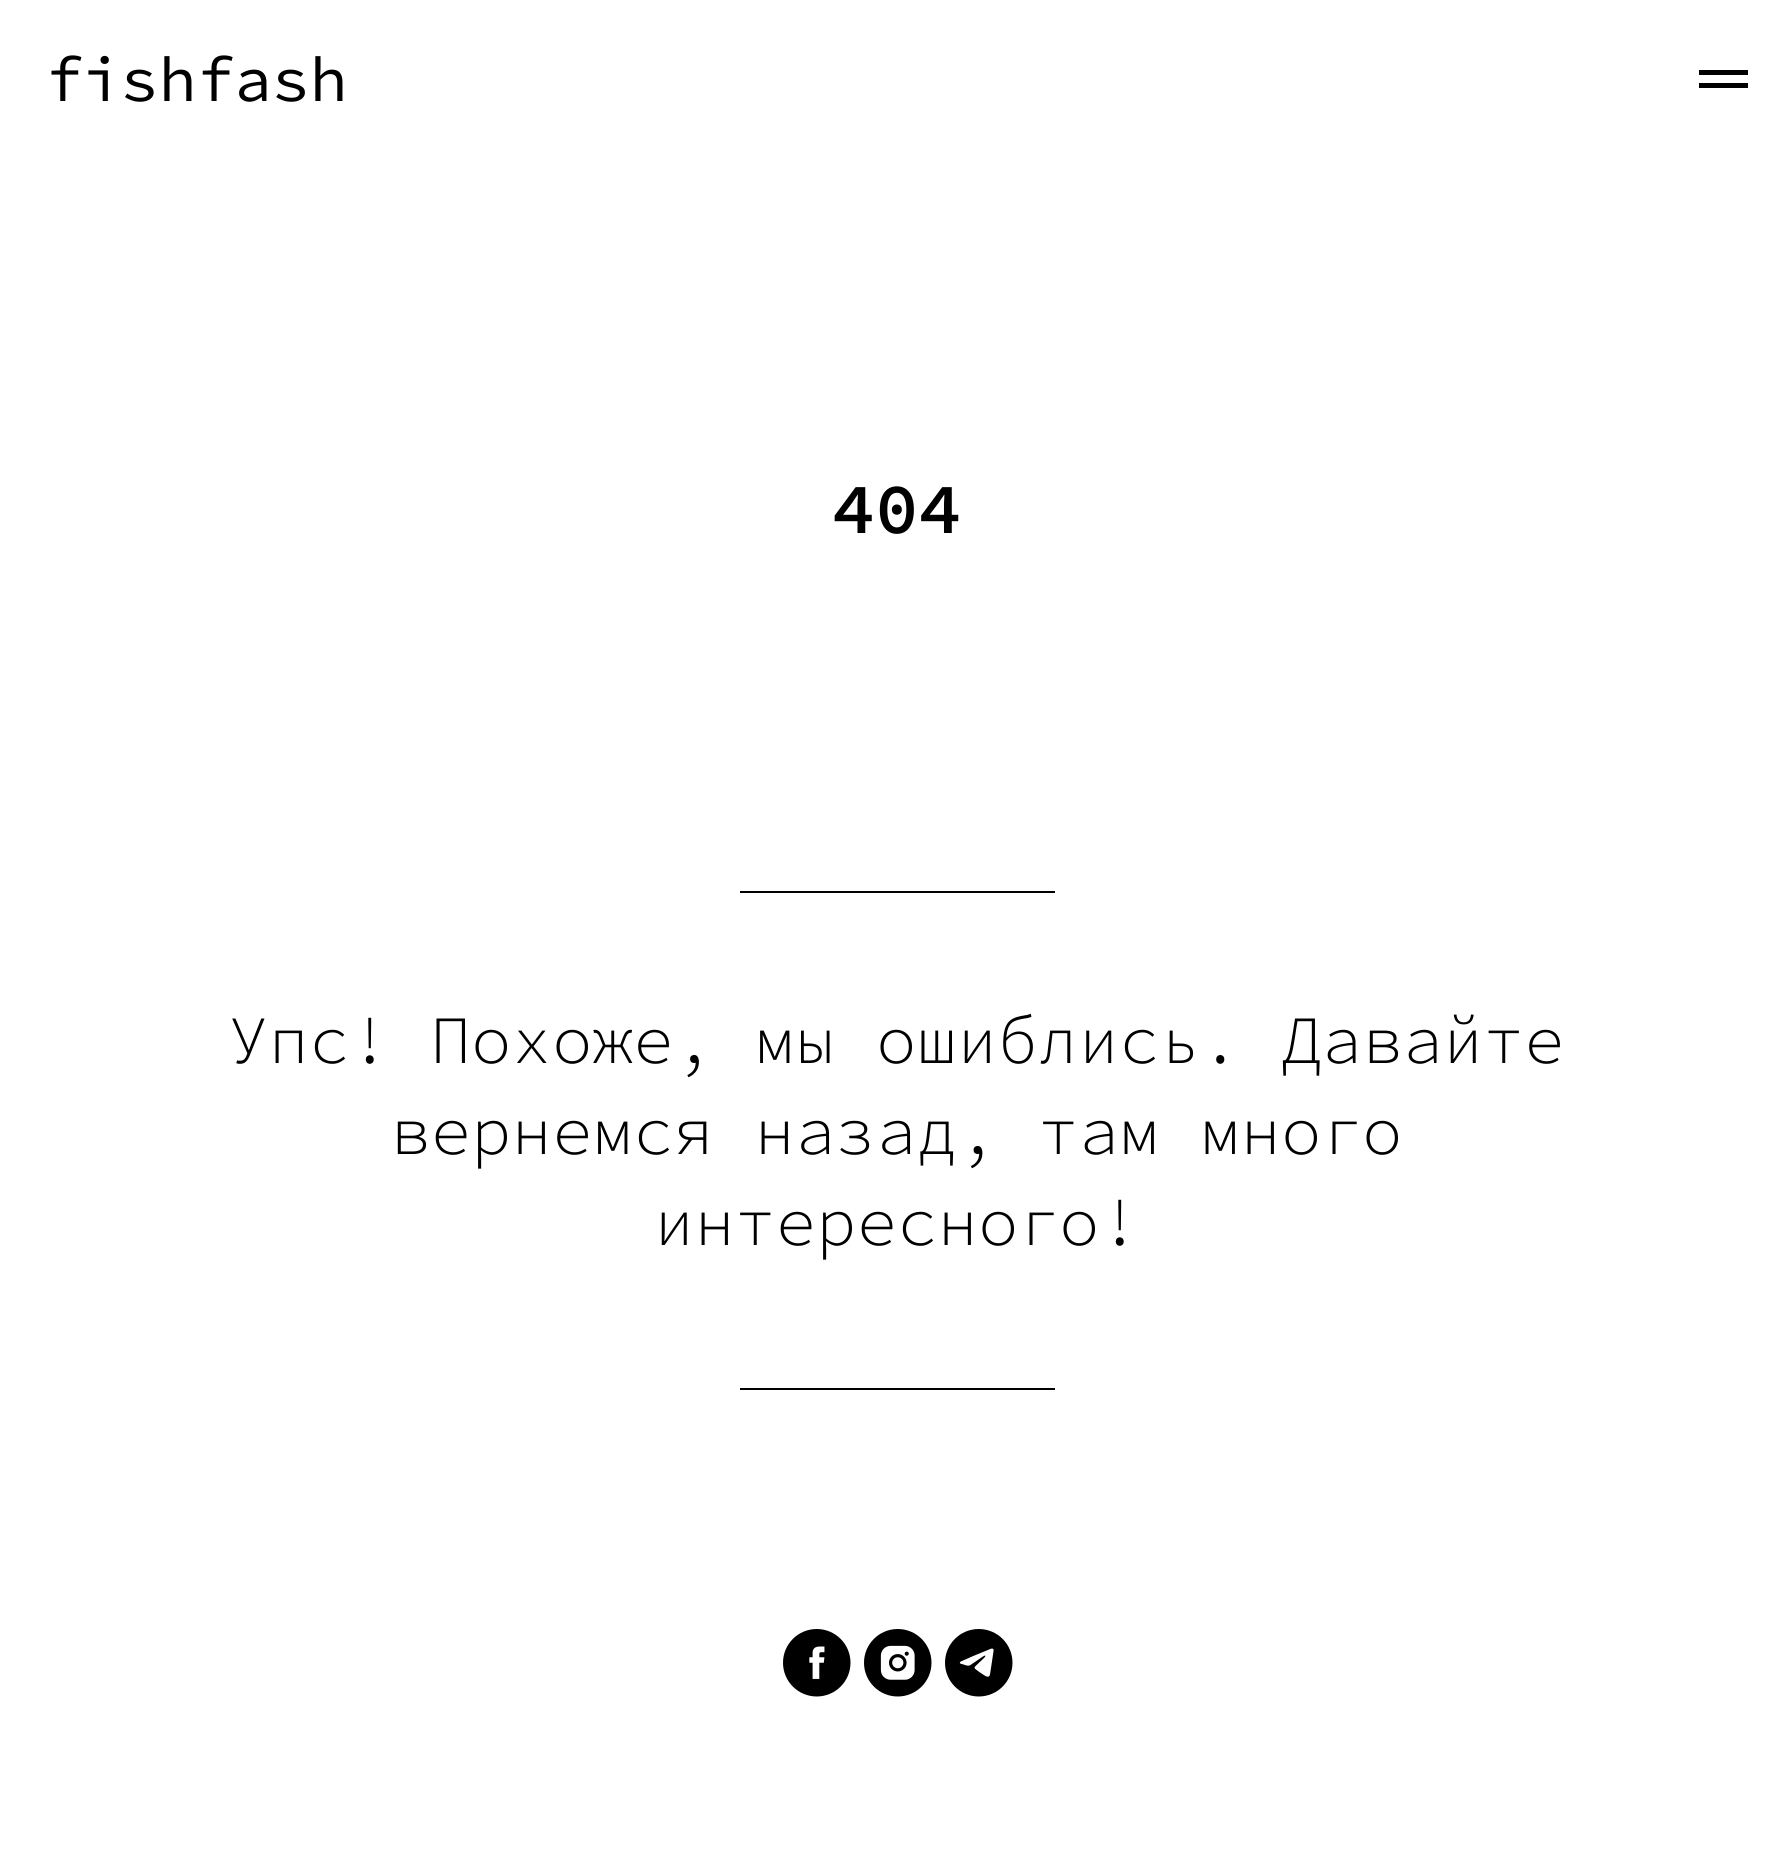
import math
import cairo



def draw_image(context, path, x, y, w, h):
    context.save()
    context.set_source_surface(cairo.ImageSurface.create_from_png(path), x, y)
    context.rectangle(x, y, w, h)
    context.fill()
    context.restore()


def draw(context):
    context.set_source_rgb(1, 1, 1)
    context.paint()
    context.set_source_rgb(0, 0, 0)
    context.rectangle(1699, 70, 49, 5)
    context.fill()
    context.rectangle(1699, 83, 49, 5)
    context.fill()
    draw_image(context, "images/1.png", 783, 1629, 68, 68)
    draw_image(context, "images/2.png", 864, 1629, 68, 68)
    draw_image(context, "images/3.png", 945, 1629, 68, 68)
    context.rectangle(740, 891, 315, 2)
    context.fill()
    context.rectangle(740, 1388, 315, 2)
    context.fill()
    context.select_font_face("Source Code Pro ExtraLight")
    context.set_font_size(63)
    context.move_to(45, 101)
    context.show_text("fishfash")
    context.select_font_face("Source Code Pro ExtraLight SemiBold")
    context.set_font_size(72)
    context.move_to(832, 533)
    context.show_text("404")
    context.select_font_face("Source Code Pro ExtraLight Light")
    context.set_font_size(67.5)
    context.move_to(228, 1063)
    context.show_text("Упс! Похоже, мы ошиблись. Давайте")
    context.move_to(390, 1154)
    context.show_text("вернемся назад, там много")
    context.move_to(654, 1245)
    context.show_text("интересного!")


surface = cairo.ImageSurface(cairo.Format.RGB24, 1792, 1873)
context = cairo.Context(surface)
options = cairo.FontOptions()
options.set_hint_metrics(cairo.HintMetrics.OFF)
options.set_hint_style(cairo.HintStyle.NONE)
context.set_font_options(options)
context.set_miter_limit(4)
draw(context)
surface.write_to_png("out.png")
